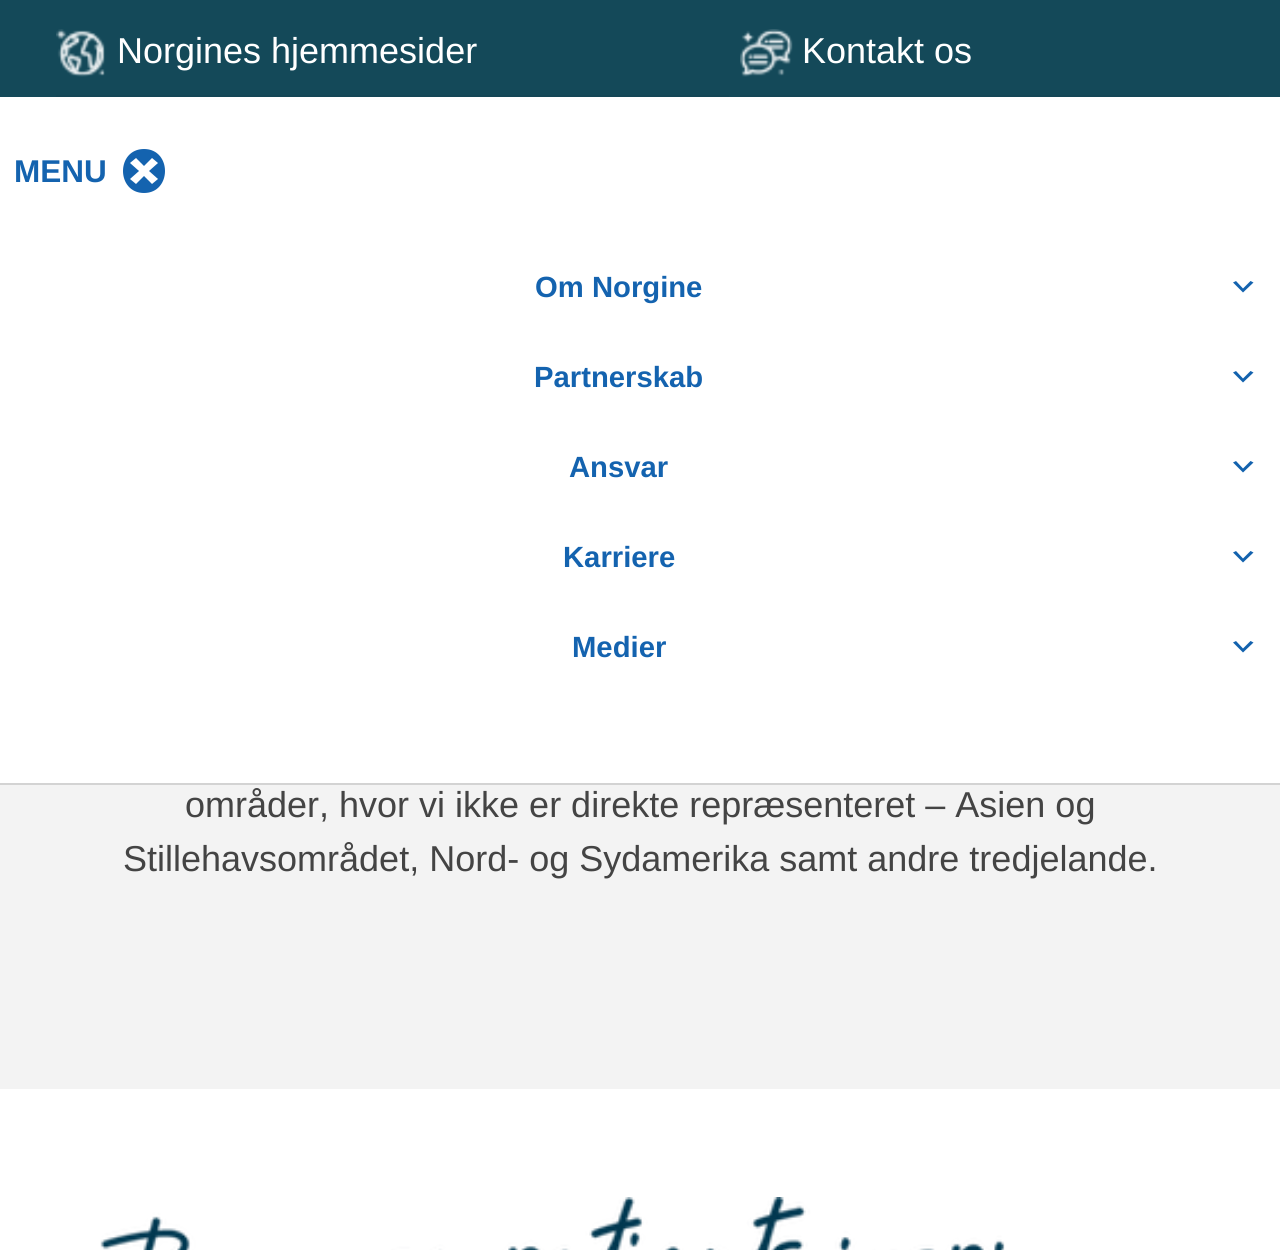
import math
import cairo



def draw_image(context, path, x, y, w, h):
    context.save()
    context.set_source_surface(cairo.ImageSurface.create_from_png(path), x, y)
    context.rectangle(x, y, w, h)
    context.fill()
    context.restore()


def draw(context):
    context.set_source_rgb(1, 1, 1)
    context.paint()
    context.set_source_rgb(20 / 255, 73 / 255, 89 / 255)
    context.rectangle(0, 0, 1280, 97)
    context.fill()
    context.set_source_rgb(20 / 255, 70 / 255, 86 / 255)
    context.rectangle(56, 95, 673, 2)
    context.fill()
    draw_image(context, "images/1.png", 56, 29, 49, 48)
    context.rectangle(740, 95, 489, 2)
    context.fill()
    draw_image(context, "images/2.png", 740, 29, 53, 48)
    context.set_source_rgb(211 / 255, 211 / 255, 211 / 255)
    context.rectangle(0, 783, 1280, 2)
    context.fill()
    context.set_source_rgb(20 / 255, 99 / 255, 175 / 255)
    context.new_path()
    context.move_to(144, 149)
    context.curve_to(172, 149, 172, 193, 144, 193)
    context.curve_to(116, 193, 116, 149, 144, 149)
    context.close_path()
    context.move_to(158, 179)
    context.line_to(149, 171)
    context.line_to(158, 163)
    context.line_to(152, 158)
    context.line_to(144, 166)
    context.line_to(136, 158)
    context.line_to(130, 163)
    context.line_to(139, 171)
    context.line_to(130, 179)
    context.line_to(136, 184)
    context.line_to(144, 176)
    context.line_to(152, 184)
    context.close_path()
    context.fill()
    context.new_path()
    context.move_to(1236, 281)
    context.line_to(1243, 288.5)
    context.line_to(1250.5, 281)
    context.line_to(1253.5, 282.5)
    context.line_to(1243, 292.5)
    context.line_to(1233, 282.5)
    context.close_path()
    context.fill()
    context.set_source_rgb(19 / 255, 98 / 255, 174 / 255)
    context.new_path()
    context.move_to(1236, 371)
    context.line_to(1243, 378.5)
    context.line_to(1250.5, 371)
    context.line_to(1253.5, 372.5)
    context.line_to(1243, 382.5)
    context.line_to(1233, 372.5)
    context.close_path()
    context.fill()
    context.new_path()
    context.move_to(1236, 461)
    context.line_to(1243, 468.5)
    context.line_to(1250.5, 461)
    context.line_to(1253.5, 462.5)
    context.line_to(1243, 472.5)
    context.line_to(1233, 462.5)
    context.close_path()
    context.fill()
    context.new_path()
    context.move_to(1236, 551)
    context.line_to(1243, 558.5)
    context.line_to(1250.5, 551)
    context.line_to(1253.5, 552.5)
    context.line_to(1243, 562.5)
    context.line_to(1233, 552.5)
    context.close_path()
    context.fill()
    context.new_path()
    context.move_to(1236, 641)
    context.line_to(1243, 648.5)
    context.line_to(1250.5, 641)
    context.line_to(1253.5, 642.5)
    context.line_to(1243, 652.5)
    context.line_to(1233, 642.5)
    context.close_path()
    context.fill()
    context.set_source_rgb(243 / 255, 243 / 255, 243 / 255)
    context.rectangle(0, 785, 1280, 304)
    context.fill()
    draw_image(context, "images/3.png", 100, 1197, 905, 53)
    context.select_font_face("Liberation Sans")
    context.set_font_size(36)
    context.set_source_rgb(1, 1, 1)
    context.move_to(117, 63)
    context.show_text("Norgines hjemmesider")
    context.move_to(802, 63)
    context.show_text("Kontakt os")
    context.select_font_face("Liberation Sans", cairo.FontSlant.NORMAL, cairo.FontWeight.BOLD)
    context.set_font_size(31.5)
    context.set_source_rgb(20 / 255, 99 / 255, 175 / 255)
    context.move_to(14, 182)
    context.show_text("MENU")
    context.set_font_size(29.25)
    context.move_to(535, 297)
    context.show_text("Om Norgine")
    context.move_to(534, 387)
    context.show_text("Partnerskab")
    context.move_to(569, 477)
    context.show_text("Ansvar")
    context.move_to(563, 567)
    context.show_text("Karriere")
    context.move_to(572, 657)
    context.show_text("Medier")
    context.select_font_face("Liberation Sans")
    context.set_font_size(36)
    context.set_source_rgb(68 / 255, 68 / 255, 68 / 255)
    context.move_to(185, 817)
    context.show_text("områder, hvor vi ikke er direkte repræsenteret – Asien og")
    context.move_to(123, 871)
    context.show_text("Stillehavsområdet, Nord- og Sydamerika samt andre tredjelande.")


surface = cairo.ImageSurface(cairo.Format.RGB24, 1280, 1250)
context = cairo.Context(surface)
options = cairo.FontOptions()
options.set_hint_metrics(cairo.HintMetrics.OFF)
options.set_hint_style(cairo.HintStyle.NONE)
context.set_font_options(options)
context.set_miter_limit(4)
draw(context)
surface.write_to_png("out.png")
